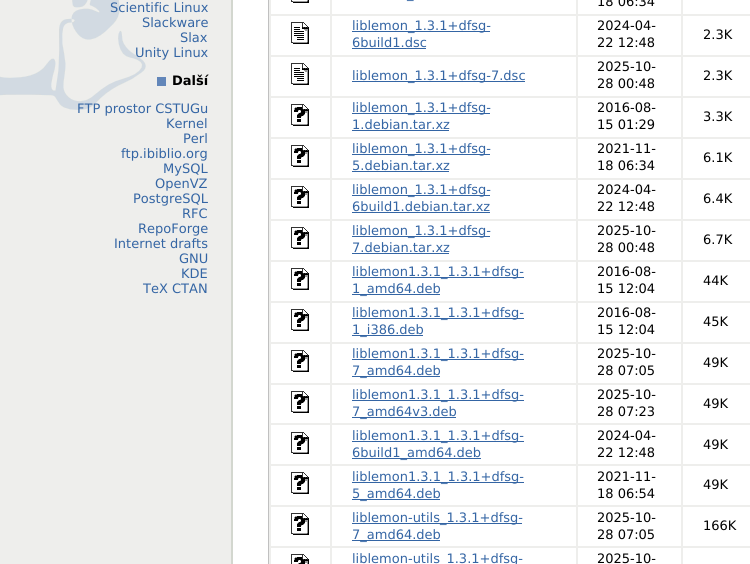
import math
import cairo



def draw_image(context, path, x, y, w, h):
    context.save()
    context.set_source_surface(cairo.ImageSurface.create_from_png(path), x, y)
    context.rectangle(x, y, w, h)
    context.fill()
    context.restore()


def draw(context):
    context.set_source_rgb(1, 1, 1)
    context.paint()
    draw_image(context, "images/1.png", 0, 0, 233, 564)
    draw_image(context, "images/2.png", 0, 0, 146, 110)
    context.set_source_rgb(98 / 255, 134 / 255, 185 / 255)
    context.rectangle(157, 77, 9, 9)
    context.fill()
    context.set_source_rgb(238 / 255, 238 / 255, 236 / 255)
    context.rectangle(268.5, -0.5, 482, 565)
    context.fill_preserve()
    context.set_source_rgb(192 / 255, 192 / 255, 192 / 255)
    context.set_line_width(1)
    context.stroke()
    context.set_source_rgb(1, 1, 1)
    context.rectangle(271, 0, 59, 14)
    context.fill()
    draw_image(context, "images/3.png", 291, 0, 18, 3)
    context.rectangle(332, 0, 244, 14)
    context.fill()
    context.rectangle(578, 0, 103, 14)
    context.fill()
    context.rectangle(683, 0, 67, 14)
    context.fill()
    context.rectangle(271, 16, 59, 39)
    context.fill()
    draw_image(context, "images/4.png", 291, 22, 18, 22)
    context.rectangle(332, 16, 244, 39)
    context.fill()
    context.set_source_rgb(52 / 255, 101 / 255, 164 / 255)
    context.rectangle(352, 31, 138, 1)
    context.fill()
    context.rectangle(352, 48, 74, 1)
    context.fill()
    context.set_source_rgb(1, 1, 1)
    context.rectangle(578, 16, 103, 39)
    context.fill()
    context.rectangle(683, 16, 67, 39)
    context.fill()
    context.rectangle(271, 57, 59, 39)
    context.fill()
    draw_image(context, "images/4.png", 291, 63, 18, 22)
    context.rectangle(332, 57, 244, 39)
    context.fill()
    context.set_source_rgb(52 / 255, 101 / 255, 164 / 255)
    context.rectangle(352, 81, 173, 1)
    context.fill()
    context.set_source_rgb(1, 1, 1)
    context.rectangle(578, 57, 103, 39)
    context.fill()
    context.rectangle(683, 57, 67, 39)
    context.fill()
    context.rectangle(271, 98, 59, 39)
    context.fill()
    draw_image(context, "images/5.png", 291, 104, 18, 22)
    context.rectangle(332, 98, 244, 39)
    context.fill()
    context.set_source_rgb(52 / 255, 101 / 255, 164 / 255)
    context.rectangle(352, 113, 138, 1)
    context.fill()
    context.rectangle(352, 130, 97, 1)
    context.fill()
    context.set_source_rgb(1, 1, 1)
    context.rectangle(578, 98, 103, 39)
    context.fill()
    context.rectangle(683, 98, 67, 39)
    context.fill()
    context.rectangle(271, 139, 59, 39)
    context.fill()
    draw_image(context, "images/5.png", 291, 145, 18, 22)
    context.rectangle(332, 139, 244, 39)
    context.fill()
    context.set_source_rgb(52 / 255, 101 / 255, 164 / 255)
    context.rectangle(352, 154, 138, 1)
    context.fill()
    context.rectangle(352, 171, 97, 1)
    context.fill()
    context.set_source_rgb(1, 1, 1)
    context.rectangle(578, 139, 103, 39)
    context.fill()
    context.rectangle(683, 139, 67, 39)
    context.fill()
    context.rectangle(271, 180, 59, 39)
    context.fill()
    draw_image(context, "images/5.png", 291, 186, 18, 22)
    context.rectangle(332, 180, 244, 39)
    context.fill()
    context.set_source_rgb(52 / 255, 101 / 255, 164 / 255)
    context.rectangle(352, 195, 138, 1)
    context.fill()
    context.rectangle(352, 212, 138, 1)
    context.fill()
    context.set_source_rgb(1, 1, 1)
    context.rectangle(578, 180, 103, 39)
    context.fill()
    context.rectangle(683, 180, 67, 39)
    context.fill()
    context.rectangle(271, 221, 59, 39)
    context.fill()
    draw_image(context, "images/5.png", 291, 227, 18, 22)
    context.rectangle(332, 221, 244, 39)
    context.fill()
    context.set_source_rgb(52 / 255, 101 / 255, 164 / 255)
    context.rectangle(352, 236, 138, 1)
    context.fill()
    context.rectangle(352, 253, 97, 1)
    context.fill()
    context.set_source_rgb(1, 1, 1)
    context.rectangle(578, 221, 103, 39)
    context.fill()
    context.rectangle(683, 221, 67, 39)
    context.fill()
    context.rectangle(271, 262, 59, 39)
    context.fill()
    draw_image(context, "images/5.png", 291, 268, 18, 22)
    context.rectangle(332, 262, 244, 39)
    context.fill()
    context.set_source_rgb(52 / 255, 101 / 255, 164 / 255)
    context.rectangle(352, 277, 172, 1)
    context.fill()
    context.rectangle(352, 294, 88, 1)
    context.fill()
    context.set_source_rgb(1, 1, 1)
    context.rectangle(578, 262, 103, 39)
    context.fill()
    context.rectangle(683, 262, 67, 39)
    context.fill()
    context.rectangle(271, 303, 59, 39)
    context.fill()
    draw_image(context, "images/5.png", 291, 309, 18, 22)
    context.rectangle(332, 303, 244, 39)
    context.fill()
    context.set_source_rgb(52 / 255, 101 / 255, 164 / 255)
    context.rectangle(352, 318, 172, 1)
    context.fill()
    context.rectangle(352, 335, 71, 1)
    context.fill()
    context.set_source_rgb(1, 1, 1)
    context.rectangle(578, 303, 103, 39)
    context.fill()
    context.rectangle(683, 303, 67, 39)
    context.fill()
    context.rectangle(271, 344, 59, 39)
    context.fill()
    draw_image(context, "images/5.png", 291, 350, 18, 22)
    context.rectangle(332, 344, 244, 39)
    context.fill()
    context.set_source_rgb(52 / 255, 101 / 255, 164 / 255)
    context.rectangle(352, 359, 172, 1)
    context.fill()
    context.rectangle(352, 376, 88, 1)
    context.fill()
    context.set_source_rgb(1, 1, 1)
    context.rectangle(578, 344, 103, 39)
    context.fill()
    context.rectangle(683, 344, 67, 39)
    context.fill()
    context.rectangle(271, 385, 59, 38)
    context.fill()
    draw_image(context, "images/5.png", 291, 391, 18, 22)
    context.rectangle(332, 385, 244, 38)
    context.fill()
    context.set_source_rgb(52 / 255, 101 / 255, 164 / 255)
    context.rectangle(352, 400, 172, 1)
    context.fill()
    context.rectangle(352, 417, 104, 1)
    context.fill()
    context.set_source_rgb(1, 1, 1)
    context.rectangle(578, 385, 103, 38)
    context.fill()
    context.rectangle(683, 385, 67, 38)
    context.fill()
    context.rectangle(271, 425, 59, 39)
    context.fill()
    draw_image(context, "images/5.png", 291, 432, 18, 22)
    context.rectangle(332, 425, 244, 39)
    context.fill()
    context.set_source_rgb(52 / 255, 101 / 255, 164 / 255)
    context.rectangle(352, 441, 172, 1)
    context.fill()
    context.rectangle(352, 458, 129, 1)
    context.fill()
    context.set_source_rgb(1, 1, 1)
    context.rectangle(578, 425, 103, 39)
    context.fill()
    context.rectangle(683, 425, 67, 39)
    context.fill()
    context.rectangle(271, 466, 59, 39)
    context.fill()
    draw_image(context, "images/5.png", 291, 472, 18, 22)
    context.rectangle(332, 466, 244, 39)
    context.fill()
    context.set_source_rgb(52 / 255, 101 / 255, 164 / 255)
    context.rectangle(352, 482, 172, 1)
    context.fill()
    context.rectangle(352, 499, 88, 1)
    context.fill()
    context.set_source_rgb(1, 1, 1)
    context.rectangle(578, 466, 103, 39)
    context.fill()
    context.rectangle(683, 466, 67, 39)
    context.fill()
    context.rectangle(271, 507, 59, 39)
    context.fill()
    draw_image(context, "images/5.png", 291, 513, 18, 22)
    context.rectangle(332, 507, 244, 39)
    context.fill()
    context.set_source_rgb(52 / 255, 101 / 255, 164 / 255)
    context.rectangle(352, 523, 170, 1)
    context.fill()
    context.rectangle(352, 540, 88, 1)
    context.fill()
    context.set_source_rgb(1, 1, 1)
    context.rectangle(578, 507, 103, 39)
    context.fill()
    context.rectangle(683, 507, 67, 39)
    context.fill()
    context.rectangle(271, 548, 59, 16)
    context.fill()
    draw_image(context, "images/6.png", 291, 554, 18, 10)
    context.rectangle(332, 548, 244, 16)
    context.fill()
    context.rectangle(578, 548, 103, 16)
    context.fill()
    context.rectangle(683, 548, 67, 16)
    context.fill()
    context.select_font_face("DejaVu Sans")
    context.set_font_size(13)
    context.set_source_rgb(52 / 255, 101 / 255, 164 / 255)
    context.move_to(110, 12)
    context.show_text("Scientific Linux")
    context.move_to(142, 27)
    context.show_text("Slackware")
    context.move_to(180, 42)
    context.show_text("Slax")
    context.move_to(135, 57)
    context.show_text("Unity Linux")
    context.select_font_face("DejaVu Sans", cairo.FontSlant.NORMAL, cairo.FontWeight.BOLD)
    context.set_source_rgb(0, 0, 0)
    context.move_to(172, 85)
    context.show_text("Další")
    context.select_font_face("DejaVu Sans")
    context.set_source_rgb(52 / 255, 101 / 255, 164 / 255)
    context.move_to(77, 113)
    context.show_text("FTP prostor CSTUGu")
    context.move_to(166, 128)
    context.show_text("Kernel")
    context.move_to(183, 143)
    context.show_text("Perl")
    context.move_to(121, 158)
    context.show_text("ftp.ibiblio.org")
    context.move_to(163, 173)
    context.show_text("MySQL")
    context.move_to(155, 188)
    context.show_text("OpenVZ")
    context.move_to(133, 203)
    context.show_text("PostgreSQL")
    context.move_to(182, 218)
    context.show_text("RFC")
    context.move_to(138, 233)
    context.show_text("RepoForge")
    context.move_to(114, 248)
    context.show_text("Internet drafts")
    context.move_to(179, 263)
    context.show_text("GNU")
    context.move_to(181, 278)
    context.show_text("KDE")
    context.move_to(143, 293)
    context.show_text("TeX CTAN")
    context.move_to(407, -2)
    context.show_text("_")
    context.set_source_rgb(0, 0, 0)
    context.move_to(597, 6)
    context.show_text("18 06:34")
    context.set_source_rgb(52 / 255, 101 / 255, 164 / 255)
    context.move_to(352, 30)
    context.show_text("liblemon_1.3.1+dfsg-")
    context.move_to(352, 47)
    context.show_text("6build1.dsc")
    context.set_source_rgb(0, 0, 0)
    context.move_to(597, 30)
    context.show_text("2024-04-")
    context.move_to(597, 47)
    context.show_text("22 12:48")
    context.move_to(703, 39)
    context.show_text("2.3K")
    context.set_source_rgb(52 / 255, 101 / 255, 164 / 255)
    context.move_to(352, 80)
    context.show_text("liblemon_1.3.1+dfsg-7.dsc")
    context.set_source_rgb(0, 0, 0)
    context.move_to(597, 71)
    context.show_text("2025-10-")
    context.move_to(597, 88)
    context.show_text("28 00:48")
    context.move_to(703, 80)
    context.show_text("2.3K")
    context.set_source_rgb(52 / 255, 101 / 255, 164 / 255)
    context.move_to(352, 112)
    context.show_text("liblemon_1.3.1+dfsg-")
    context.move_to(352, 129)
    context.show_text("1.debian.tar.xz")
    context.set_source_rgb(0, 0, 0)
    context.move_to(597, 112)
    context.show_text("2016-08-")
    context.move_to(597, 129)
    context.show_text("15 01:29")
    context.move_to(703, 121)
    context.show_text("3.3K")
    context.set_source_rgb(52 / 255, 101 / 255, 164 / 255)
    context.move_to(352, 153)
    context.show_text("liblemon_1.3.1+dfsg-")
    context.move_to(352, 170)
    context.show_text("5.debian.tar.xz")
    context.set_source_rgb(0, 0, 0)
    context.move_to(597, 153)
    context.show_text("2021-11-")
    context.move_to(597, 170)
    context.show_text("18 06:34")
    context.move_to(703, 162)
    context.show_text("6.1K")
    context.set_source_rgb(52 / 255, 101 / 255, 164 / 255)
    context.move_to(352, 194)
    context.show_text("liblemon_1.3.1+dfsg-")
    context.move_to(352, 211)
    context.show_text("6build1.debian.tar.xz")
    context.set_source_rgb(0, 0, 0)
    context.move_to(597, 194)
    context.show_text("2024-04-")
    context.move_to(597, 211)
    context.show_text("22 12:48")
    context.move_to(703, 203)
    context.show_text("6.4K")
    context.set_source_rgb(52 / 255, 101 / 255, 164 / 255)
    context.move_to(352, 235)
    context.show_text("liblemon_1.3.1+dfsg-")
    context.move_to(352, 252)
    context.show_text("7.debian.tar.xz")
    context.set_source_rgb(0, 0, 0)
    context.move_to(597, 235)
    context.show_text("2025-10-")
    context.move_to(597, 252)
    context.show_text("28 00:48")
    context.move_to(703, 244)
    context.show_text("6.7K")
    context.set_source_rgb(52 / 255, 101 / 255, 164 / 255)
    context.move_to(352, 276)
    context.show_text("liblemon1.3.1_1.3.1+dfsg-")
    context.move_to(352, 293)
    context.show_text("1_amd64.deb")
    context.set_source_rgb(0, 0, 0)
    context.move_to(597, 276)
    context.show_text("2016-08-")
    context.move_to(597, 293)
    context.show_text("15 12:04")
    context.move_to(703, 285)
    context.show_text("44K")
    context.set_source_rgb(52 / 255, 101 / 255, 164 / 255)
    context.move_to(352, 317)
    context.show_text("liblemon1.3.1_1.3.1+dfsg-")
    context.move_to(352, 334)
    context.show_text("1_i386.deb")
    context.set_source_rgb(0, 0, 0)
    context.move_to(597, 317)
    context.show_text("2016-08-")
    context.move_to(597, 334)
    context.show_text("15 12:04")
    context.move_to(703, 326)
    context.show_text("45K")
    context.set_source_rgb(52 / 255, 101 / 255, 164 / 255)
    context.move_to(352, 358)
    context.show_text("liblemon1.3.1_1.3.1+dfsg-")
    context.move_to(352, 375)
    context.show_text("7_amd64.deb")
    context.set_source_rgb(0, 0, 0)
    context.move_to(597, 358)
    context.show_text("2025-10-")
    context.move_to(597, 375)
    context.show_text("28 07:05")
    context.move_to(703, 367)
    context.show_text("49K")
    context.set_source_rgb(52 / 255, 101 / 255, 164 / 255)
    context.move_to(352, 399)
    context.show_text("liblemon1.3.1_1.3.1+dfsg-")
    context.move_to(352, 416)
    context.show_text("7_amd64v3.deb")
    context.set_source_rgb(0, 0, 0)
    context.move_to(597, 399)
    context.show_text("2025-10-")
    context.move_to(597, 416)
    context.show_text("28 07:23")
    context.move_to(703, 408)
    context.show_text("49K")
    context.set_source_rgb(52 / 255, 101 / 255, 164 / 255)
    context.move_to(352, 440)
    context.show_text("liblemon1.3.1_1.3.1+dfsg-")
    context.move_to(352, 457)
    context.show_text("6build1_amd64.deb")
    context.set_source_rgb(0, 0, 0)
    context.move_to(597, 440)
    context.show_text("2024-04-")
    context.move_to(597, 457)
    context.show_text("22 12:48")
    context.move_to(703, 449)
    context.show_text("49K")
    context.set_source_rgb(52 / 255, 101 / 255, 164 / 255)
    context.move_to(352, 481)
    context.show_text("liblemon1.3.1_1.3.1+dfsg-")
    context.move_to(352, 498)
    context.show_text("5_amd64.deb")
    context.set_source_rgb(0, 0, 0)
    context.move_to(597, 481)
    context.show_text("2021-11-")
    context.move_to(597, 498)
    context.show_text("18 06:54")
    context.move_to(703, 489)
    context.show_text("49K")
    context.set_source_rgb(52 / 255, 101 / 255, 164 / 255)
    context.move_to(352, 522)
    context.show_text("liblemon-utils_1.3.1+dfsg-")
    context.move_to(352, 539)
    context.show_text("7_amd64.deb")
    context.set_source_rgb(0, 0, 0)
    context.move_to(597, 522)
    context.show_text("2025-10-")
    context.move_to(597, 539)
    context.show_text("28 07:05")
    context.move_to(703, 530)
    context.show_text("166K")
    context.set_source_rgb(52 / 255, 101 / 255, 164 / 255)
    context.move_to(352, 563)
    context.show_text("liblemon-utils_1.3.1+dfsg-")
    context.set_source_rgb(0, 0, 0)
    context.move_to(597, 563)
    context.show_text("2025-10-")


surface = cairo.ImageSurface(cairo.Format.RGB24, 750, 564)
context = cairo.Context(surface)
options = cairo.FontOptions()
options.set_hint_metrics(cairo.HintMetrics.OFF)
options.set_hint_style(cairo.HintStyle.NONE)
context.set_font_options(options)
context.set_miter_limit(4)
draw(context)
surface.write_to_png("out.png")
